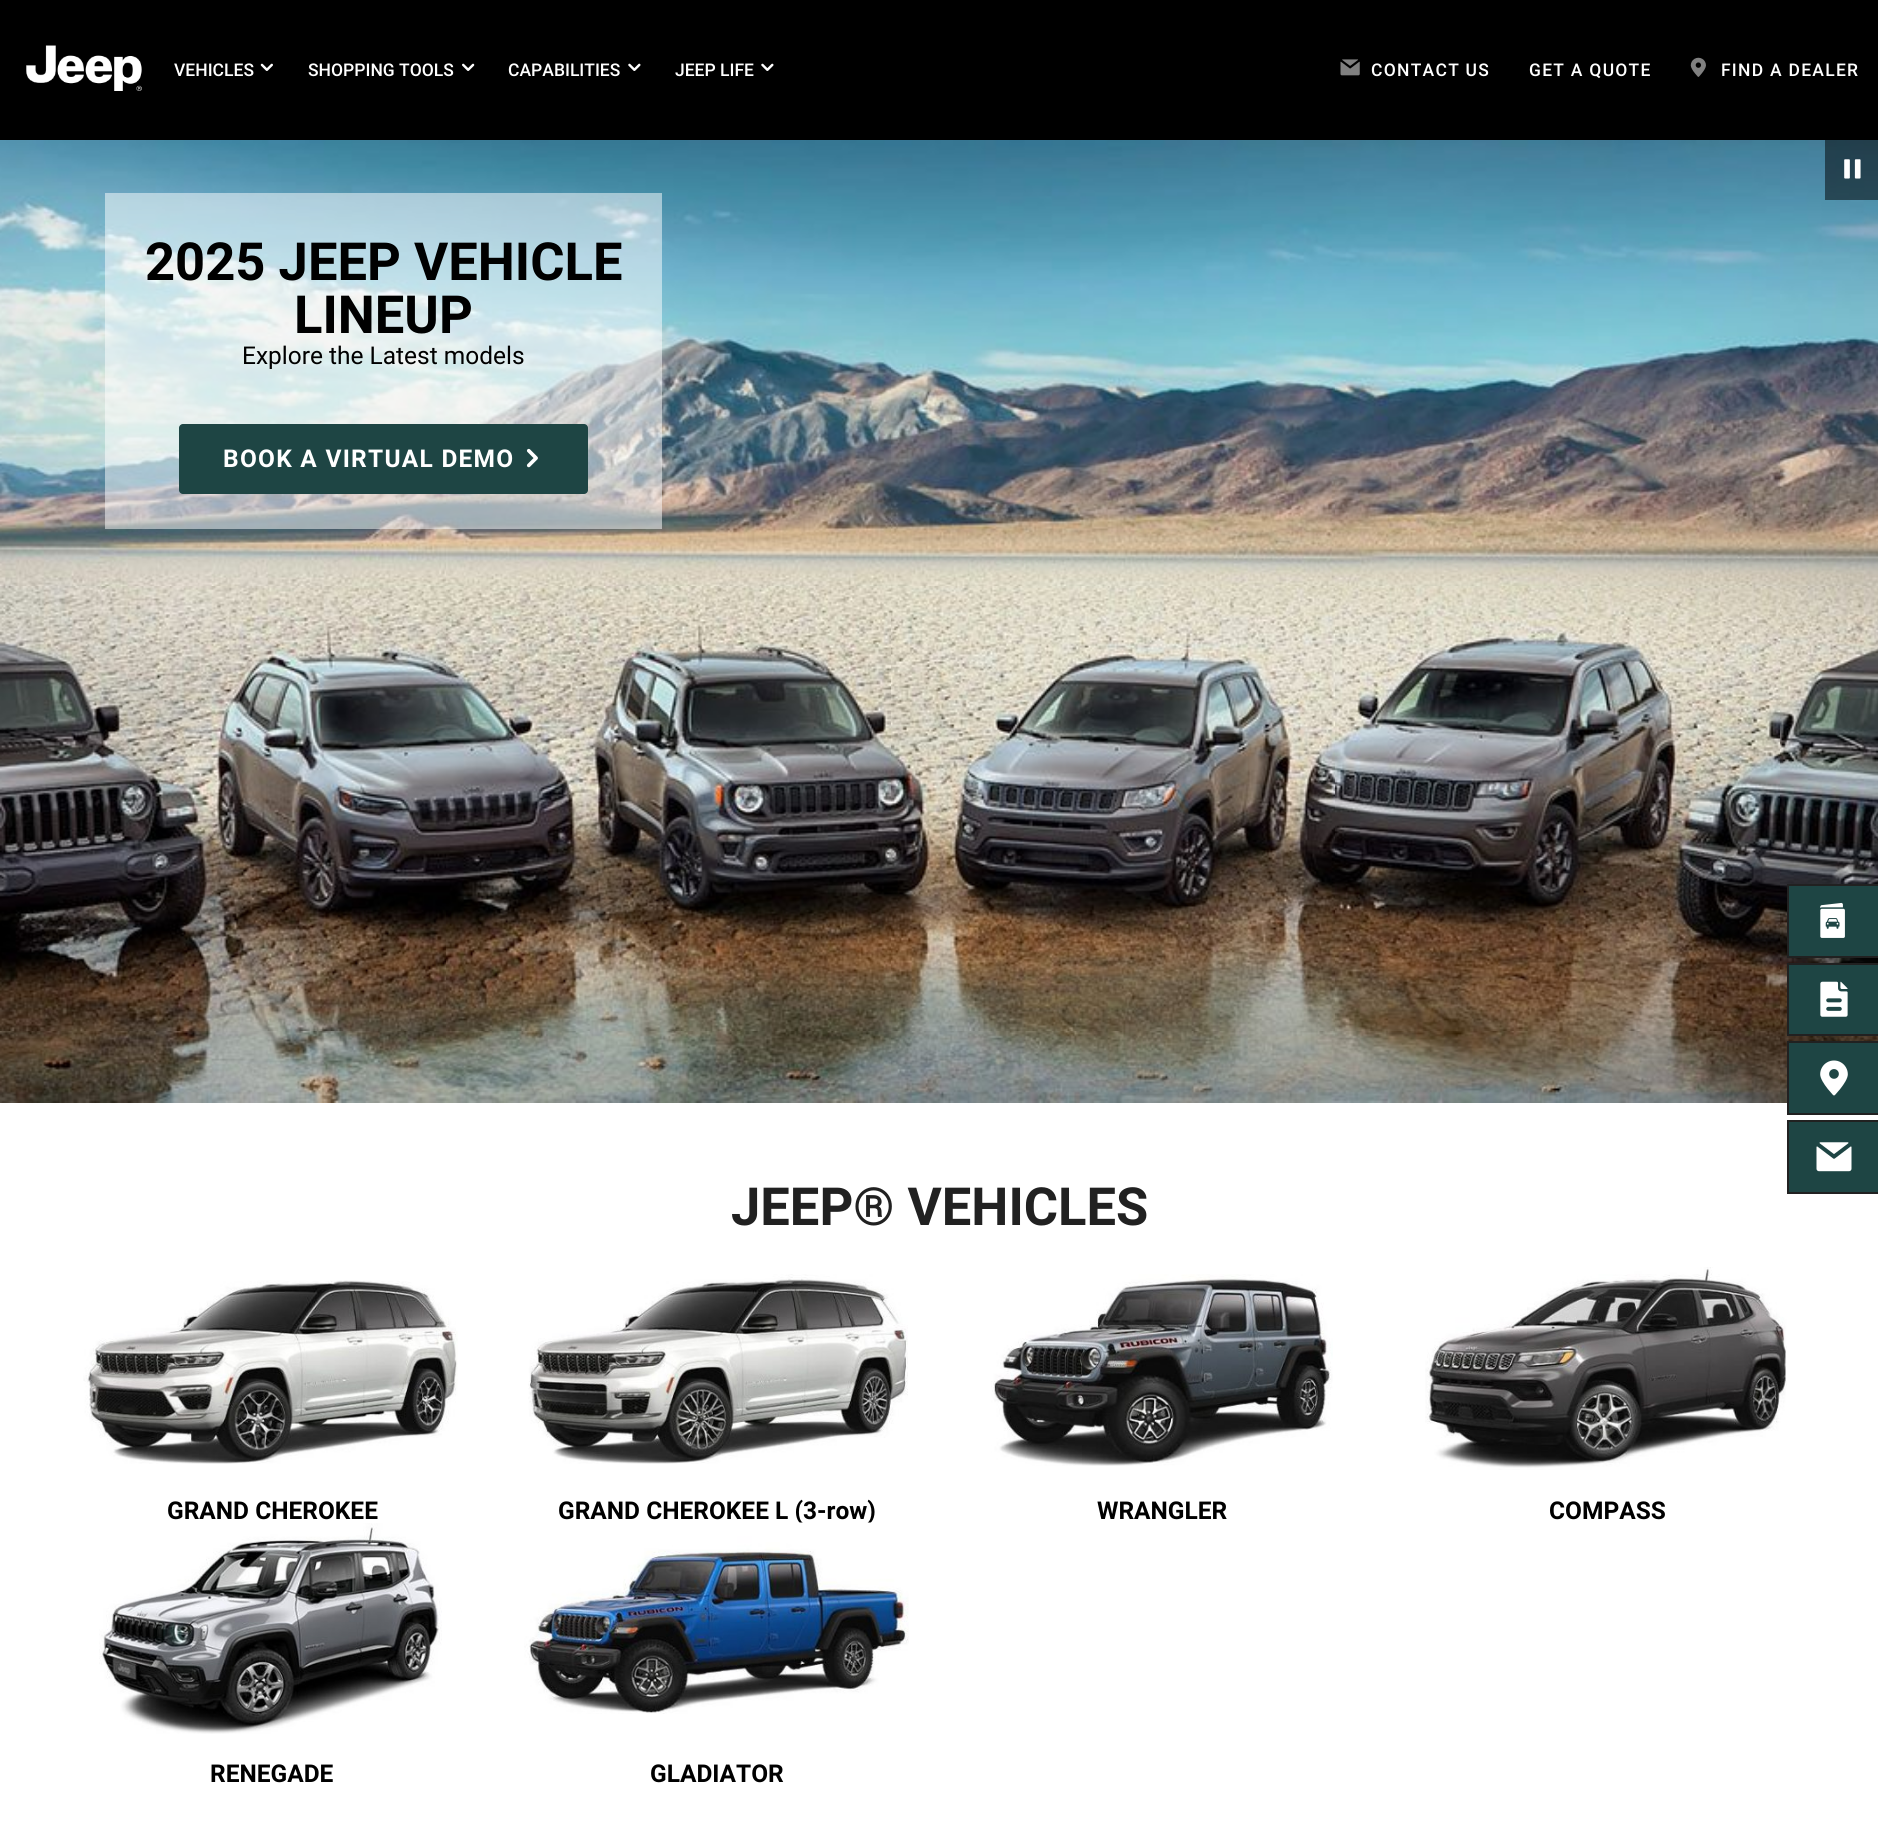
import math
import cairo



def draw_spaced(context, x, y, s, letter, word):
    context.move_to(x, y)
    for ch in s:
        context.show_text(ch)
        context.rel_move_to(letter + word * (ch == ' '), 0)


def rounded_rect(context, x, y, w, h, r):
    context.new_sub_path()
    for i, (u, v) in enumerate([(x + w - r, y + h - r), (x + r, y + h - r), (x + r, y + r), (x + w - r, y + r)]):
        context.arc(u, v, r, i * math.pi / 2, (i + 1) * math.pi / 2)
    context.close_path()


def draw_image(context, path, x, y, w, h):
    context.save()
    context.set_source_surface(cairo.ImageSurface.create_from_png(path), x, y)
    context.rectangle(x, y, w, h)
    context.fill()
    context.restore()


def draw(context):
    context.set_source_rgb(0, 0, 0)
    context.paint()
    draw_image(context, "images/1.png", 26, 45, 116, 46)
    draw_image(context, "images/2.png", 260, 63, 13, 8)
    draw_image(context, "images/3.png", 462, 63, 13, 8)
    draw_image(context, "images/4.png", 628, 63, 13, 8)
    draw_image(context, "images/4.png", 761, 63, 13, 8)
    draw_image(context, "images/5.png", 1340, 59, 20, 17)
    draw_image(context, "images/6.png", 1690, 57, 16, 20)
    draw_image(context, "images/8.png", 0, 140, 1878, 963)
    context.set_source_rgba(0, 0, 0, 0.5)
    context.rectangle(1825, 140, 53, 60)
    context.fill()
    draw_image(context, "images/7.png", 1844, 159, 17, 20)
    context.set_source_rgba(1, 1, 1, 0.5)
    context.rectangle(105, 193, 557, 336)
    context.fill()
    context.set_source_rgb(30 / 255, 69 / 255, 68 / 255)
    rounded_rect(context, 179, 424, 409, 70, 4)
    context.fill()
    draw_image(context, "images/9.png", 526, 448, 12, 20)
    context.set_source_rgb(1, 1, 1)
    context.rectangle(0, 1103, 1878, 720)
    context.fill()
    draw_image(context, "images/10.png", 83, 1280, 375, 184)
    draw_image(context, "images/11.png", 528, 1274, 380, 190)
    draw_image(context, "images/12.png", 991, 1274, 342, 192)
    draw_image(context, "images/13.png", 1425, 1267, 362, 203)
    draw_image(context, "images/14.png", 99, 1523, 343, 211)
    context.set_source_rgb(33 / 255, 33 / 255, 33 / 255)
    context.rectangle(1787, 884, 2, 74)
    context.fill()
    context.set_source_rgb(30 / 255, 69 / 255, 68 / 255)
    context.rectangle(1789, 886, 89, 70)
    context.fill()
    context.set_source_rgb(33 / 255, 33 / 255, 33 / 255)
    context.rectangle(1789, 884, 89, 2)
    context.fill()
    context.rectangle(1789, 956, 89, 2)
    context.fill()
    draw_image(context, "images/16.png", 1820, 902, 25, 36)
    context.rectangle(1787, 963, 2, 73)
    context.fill()
    context.set_source_rgb(30 / 255, 69 / 255, 68 / 255)
    context.rectangle(1789, 965, 89, 69)
    context.fill()
    context.set_source_rgb(33 / 255, 33 / 255, 33 / 255)
    context.rectangle(1789, 963, 89, 2)
    context.fill()
    context.rectangle(1789, 1034, 89, 2)
    context.fill()
    draw_image(context, "images/17.png", 1820, 981, 28, 36)
    context.rectangle(1787, 1041, 2, 74)
    context.fill()
    context.set_source_rgb(30 / 255, 69 / 255, 68 / 255)
    context.rectangle(1789, 1043, 89, 70)
    context.fill()
    context.set_source_rgb(33 / 255, 33 / 255, 33 / 255)
    context.rectangle(1789, 1041, 89, 2)
    context.fill()
    context.rectangle(1789, 1113, 89, 2)
    context.fill()
    draw_image(context, "images/18.png", 1820, 1060, 28, 36)
    context.rectangle(1787, 1120, 2, 74)
    context.fill()
    context.set_source_rgb(30 / 255, 69 / 255, 68 / 255)
    context.rectangle(1789, 1122, 89, 70)
    context.fill()
    context.set_source_rgb(33 / 255, 33 / 255, 33 / 255)
    context.rectangle(1789, 1120, 89, 2)
    context.fill()
    context.rectangle(1789, 1192, 89, 2)
    context.fill()
    draw_image(context, "images/19.png", 1816, 1142, 36, 30)
    context.select_font_face("Roboto Medium")
    context.set_font_size(17.5)
    context.set_source_rgb(1, 1, 1)
    context.move_to(174, 76)
    context.show_text("VEHICLES")
    context.move_to(308, 76)
    context.show_text("SHOPPING TOOLS")
    context.move_to(508, 76)
    context.show_text("CAPABILITIES")
    context.move_to(675, 76)
    context.show_text("JEEP LIFE")
    draw_spaced(context, 1371, 76, "CONTACT US", 1.25, 0)
    draw_spaced(context, 1529, 76, "GET A QUOTE", 1.25, 0)
    draw_spaced(context, 1721, 76, "FIND A DEALER", 1.25, 0)
    context.select_font_face("Roboto", cairo.FontSlant.NORMAL, cairo.FontWeight.BOLD)
    context.set_font_size(52.5)
    context.set_source_rgb(0, 0, 0)
    context.move_to(145, 280)
    context.show_text("2025 JEEP VEHICLE")
    context.move_to(294, 333)
    context.show_text("LINEUP")
    context.select_font_face("Roboto")
    context.set_font_size(24.5)
    context.move_to(242, 364)
    context.show_text("Explore the Latest models")
    context.select_font_face("Roboto", cairo.FontSlant.NORMAL, cairo.FontWeight.BOLD)
    context.set_source_rgb(1, 1, 1)
    draw_spaced(context, 223, 467, "BOOK A VIRTUAL DEMO", 1.25, 0)
    context.set_font_size(52.5)
    context.set_source_rgb(33 / 255, 33 / 255, 33 / 255)
    context.move_to(731, 1225)
    context.show_text("JEEP® VEHICLES")
    context.set_font_size(24.5)
    context.set_source_rgb(0, 0, 0)
    context.move_to(167, 1519)
    context.show_text("GRAND CHEROKEE")
    context.move_to(558, 1519)
    context.show_text("GRAND CHEROKEE L (3-row)")
    context.move_to(1097, 1519)
    context.show_text("WRANGLER")
    context.move_to(1549, 1519)
    context.show_text("COMPASS")
    context.move_to(210, 1782)
    context.show_text("RENEGADE")
    context.set_source_rgb(1, 1, 1)
    context.rectangle(800, 1523, 71, 2)
    context.fill()
    draw_image(context, "images/15.png", 524, 1522, 385, 192)
    context.set_source_rgb(0, 0, 0)
    context.move_to(650, 1782)
    context.show_text("GLADIATOR")


surface = cairo.ImageSurface(cairo.Format.RGB24, 1878, 1823)
context = cairo.Context(surface)
options = cairo.FontOptions()
options.set_hint_metrics(cairo.HintMetrics.OFF)
options.set_hint_style(cairo.HintStyle.NONE)
context.set_font_options(options)
context.set_miter_limit(4)
draw(context)
surface.write_to_png("out.png")
